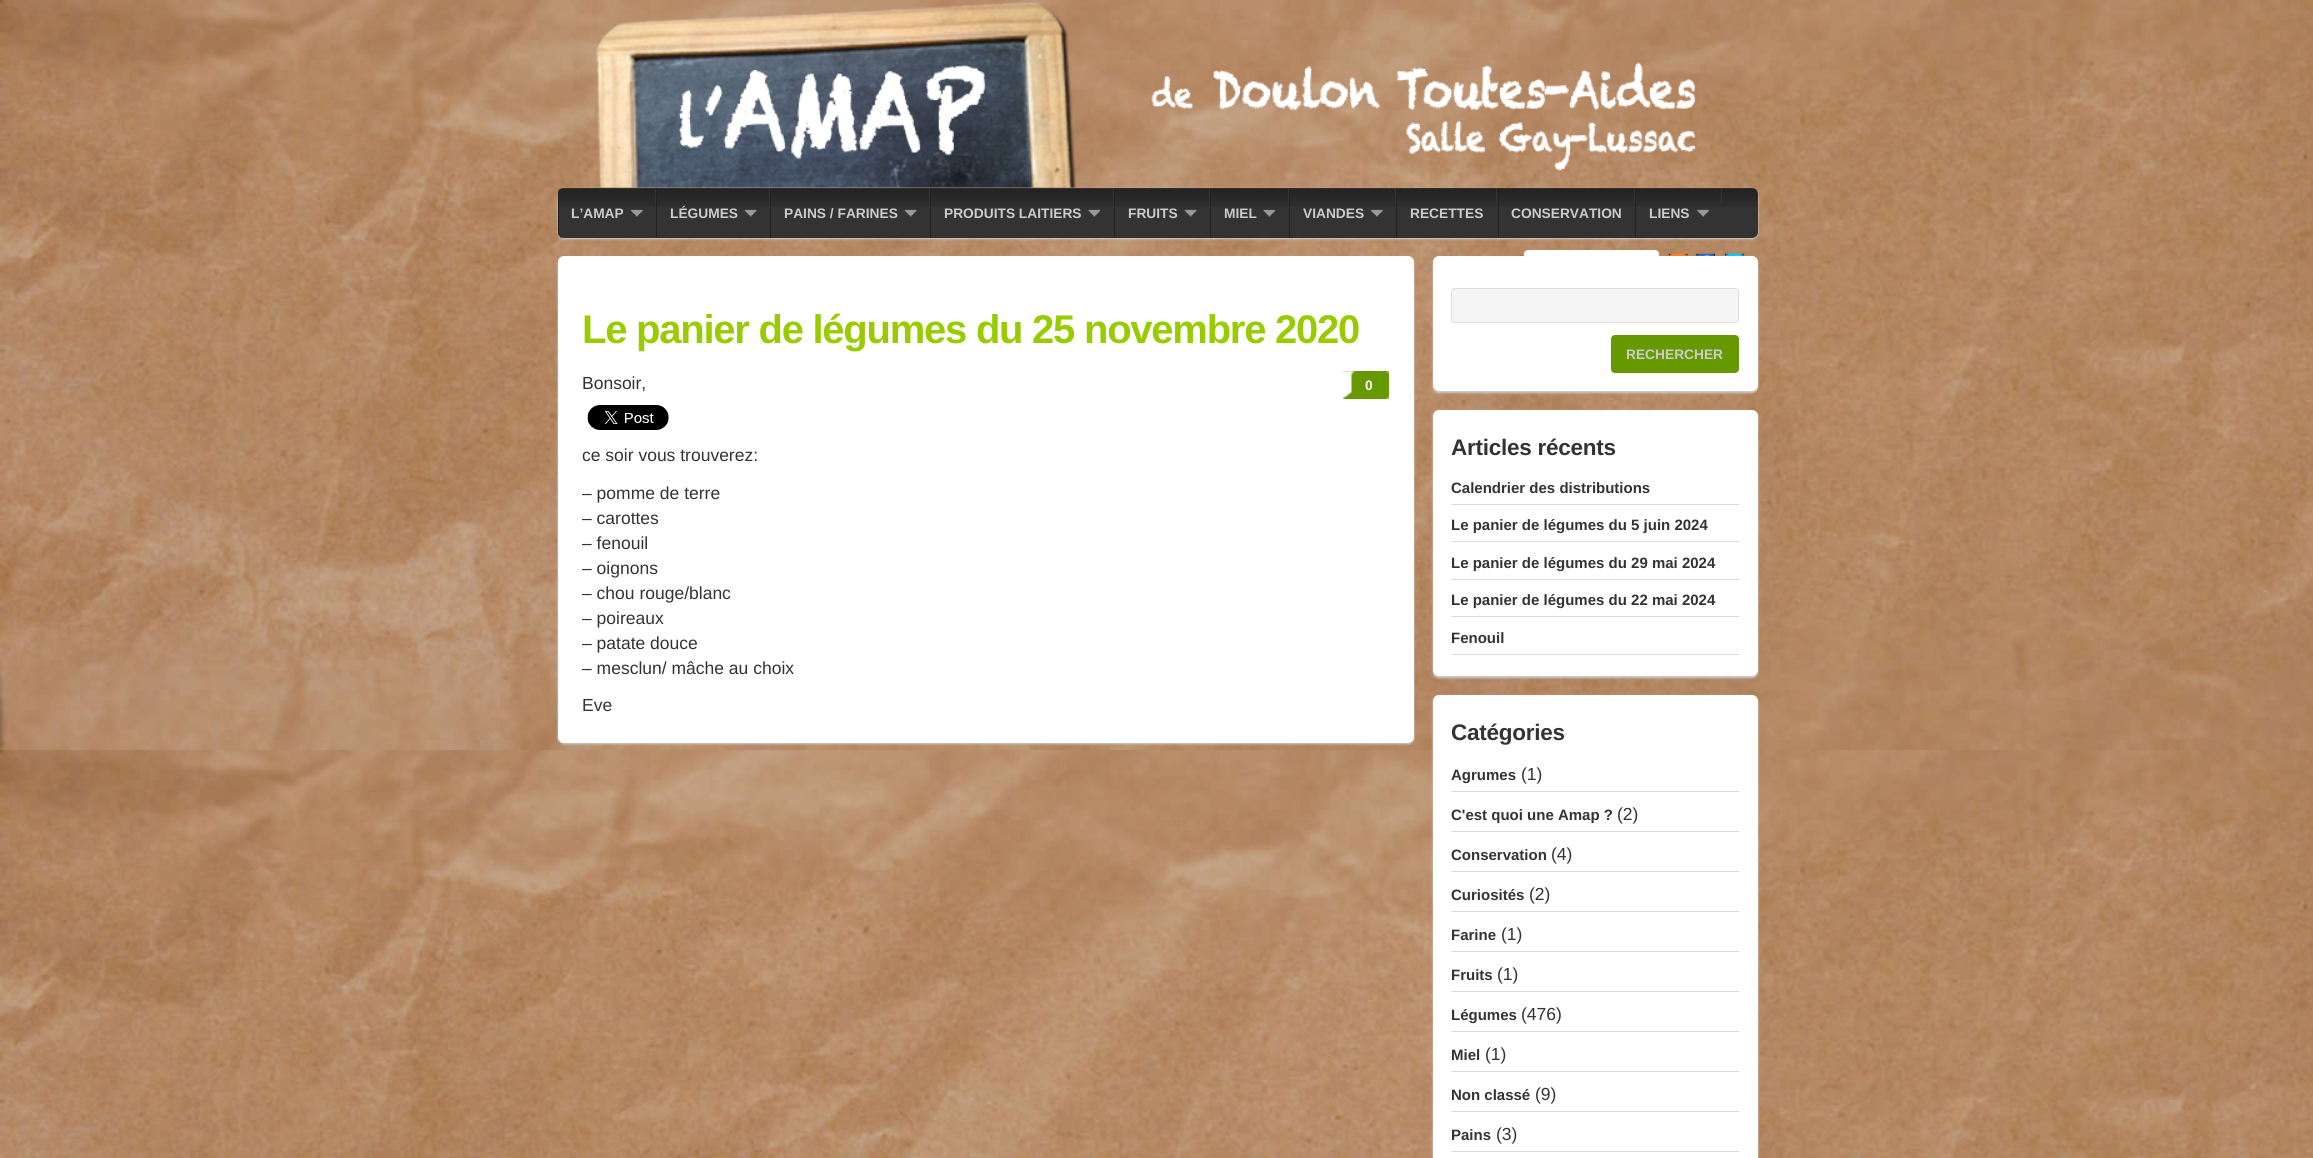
import math
import cairo



def draw_spaced(context, x, y, s, letter, word):
    context.move_to(x, y)
    for ch in s:
        context.show_text(ch)
        context.rel_move_to(letter + word * (ch == ' '), 0)


def rounded_rect(context, x, y, w, h, r):
    context.new_sub_path()
    for i, (u, v) in enumerate([(x + w - r, y + h - r), (x + r, y + h - r), (x + r, y + r), (x + w - r, y + r)]):
        context.arc(u, v, r, i * math.pi / 2, (i + 1) * math.pi / 2)
    context.close_path()


def draw_shadow(context, x, y, w, h, r, blur, alpha):
    context.push_group_with_content(cairo.Content.ALPHA)
    context.set_operator(cairo.Operator.SOURCE)
    for i in range(15, -16, -2):
        e = blur * i / 6
        if min(w, h) + 2 * e > 0:
            context.set_source_rgba(0, 0, 0, alpha * math.erfc((i - 1) / 8.5) / 2)
            rounded_rect(context, x - e, y - e, w + 2 * e, h + 2 * e, max(0, min(r + e + blur * .6, min(w, h) / 2 + e)))
            context.fill()
    context.mask(context.pop_group())


def draw_image(context, path, x, y, w, h):
    context.save()
    context.set_source_surface(cairo.ImageSurface.create_from_png(path), x, y)
    context.rectangle(x, y, w, h)
    context.fill()
    context.restore()


def draw(context):
    context.set_source_rgb(1, 1, 1)
    context.paint()
    draw_image(context, "images/1.png", 0, 0, 2313, 1158)
    context.set_source_rgb(204 / 255, 204 / 255, 204 / 255)
    draw_shadow(context, 558, 189, 1200, 50, 6, 1, 1)
    draw_image(context, "images/2.png", 596, 2, 1100, 186)
    context.set_source_rgb(51 / 255, 51 / 255, 51 / 255)
    rounded_rect(context, 558, 188, 1200, 50, 6)
    context.fill()
    draw_image(context, "images/3.png", 557, 188, 1200, 19)
    context.rectangle(655, 188, 1, 19)
    context.fill()
    context.set_source_rgb(34 / 255, 34 / 255, 34 / 255)
    context.new_path()
    context.move_to(564, 188)
    context.curve_to(561, 188, 559, 190, 559, 194)
    context.line_to(559, 231)
    context.curve_to(559, 234, 560, 236, 562, 238)
    context.line_to(561, 238)
    context.curve_to(559, 236, 558, 234, 558, 231)
    context.line_to(558, 194)
    context.curve_to(558, 190, 560, 188, 564, 188)
    context.close_path()
    context.fill()
    draw_image(context, "images/4.png", 631, 209, 12, 8)
    draw_image(context, "images/5.png", 631, 209, 12, 8)
    context.set_source_rgb(51 / 255, 51 / 255, 51 / 255)
    context.rectangle(769, 188, 1, 19)
    context.fill()
    context.set_source_rgb(34 / 255, 34 / 255, 34 / 255)
    context.rectangle(656, 188, 1, 50)
    context.fill()
    draw_image(context, "images/6.png", 744, 209, 13, 8)
    draw_image(context, "images/7.png", 744, 209, 13, 8)
    context.set_source_rgb(51 / 255, 51 / 255, 51 / 255)
    context.rectangle(929, 188, 1, 19)
    context.fill()
    context.set_source_rgb(34 / 255, 34 / 255, 34 / 255)
    context.rectangle(770, 188, 1, 50)
    context.fill()
    draw_image(context, "images/6.png", 904, 209, 13, 8)
    draw_image(context, "images/7.png", 904, 209, 13, 8)
    context.set_source_rgb(51 / 255, 51 / 255, 51 / 255)
    context.rectangle(1113, 188, 1, 19)
    context.fill()
    context.set_source_rgb(34 / 255, 34 / 255, 34 / 255)
    context.rectangle(930, 188, 1, 50)
    context.fill()
    draw_image(context, "images/8.png", 1088, 209, 12, 8)
    draw_image(context, "images/9.png", 1088, 209, 12, 8)
    context.set_source_rgb(51 / 255, 51 / 255, 51 / 255)
    context.rectangle(1209, 188, 1, 19)
    context.fill()
    context.set_source_rgb(34 / 255, 34 / 255, 34 / 255)
    context.rectangle(1114, 188, 1, 50)
    context.fill()
    draw_image(context, "images/10.png", 1184, 209, 13, 8)
    draw_image(context, "images/11.png", 1184, 209, 13, 8)
    context.set_source_rgb(51 / 255, 51 / 255, 51 / 255)
    context.rectangle(1288, 188, 1, 19)
    context.fill()
    context.set_source_rgb(34 / 255, 34 / 255, 34 / 255)
    context.rectangle(1210, 188, 1, 50)
    context.fill()
    draw_image(context, "images/12.png", 1263, 209, 12, 8)
    draw_image(context, "images/13.png", 1263, 209, 12, 8)
    context.set_source_rgb(51 / 255, 51 / 255, 51 / 255)
    context.rectangle(1395, 188, 1, 19)
    context.fill()
    context.set_source_rgb(34 / 255, 34 / 255, 34 / 255)
    context.rectangle(1289, 188, 1, 50)
    context.fill()
    draw_image(context, "images/4.png", 1371, 209, 12, 8)
    draw_image(context, "images/5.png", 1371, 209, 12, 8)
    context.set_source_rgb(51 / 255, 51 / 255, 51 / 255)
    context.rectangle(1496, 188, 1, 19)
    context.fill()
    context.set_source_rgb(34 / 255, 34 / 255, 34 / 255)
    context.rectangle(1396, 188, 1, 50)
    context.fill()
    context.set_source_rgb(51 / 255, 51 / 255, 51 / 255)
    context.rectangle(1634, 188, 1, 19)
    context.fill()
    context.set_source_rgb(34 / 255, 34 / 255, 34 / 255)
    context.rectangle(1498, 188, 1, 50)
    context.fill()
    context.set_source_rgb(51 / 255, 51 / 255, 51 / 255)
    context.rectangle(1721, 188, 1, 19)
    context.fill()
    context.set_source_rgb(34 / 255, 34 / 255, 34 / 255)
    context.rectangle(1635, 188, 1, 50)
    context.fill()
    draw_image(context, "images/14.png", 1697, 209, 12, 8)
    draw_image(context, "images/15.png", 1697, 209, 12, 8)
    context.set_source_rgb(1, 1, 1)
    rounded_rect(context, 1524, 250, 135, 28, 4)
    context.fill()
    draw_image(context, "images/16.png", 1668, 253, 20, 3)
    draw_image(context, "images/17.png", 1696, 253, 19, 3)
    draw_image(context, "images/18.png", 1725, 253, 19, 3)
    context.set_source_rgb(204 / 255, 204 / 255, 204 / 255)
    draw_shadow(context, 558, 258, 856, 486, 6, 1, 1)
    context.set_source_rgb(1, 1, 1)
    rounded_rect(context, 558, 256, 856, 487, 6)
    context.fill()
    context.set_source_rgb(102 / 255, 153 / 255, 0)
    context.rectangle(1343, 371, 46, 28)
    context.fill()
    draw_image(context, "images/19.png", 1343, 371, 46, 28)
    draw_image(context, "images/20.png", 587, 405, 82, 25)
    context.set_source_rgb(204 / 255, 204 / 255, 204 / 255)
    draw_shadow(context, 1433, 258, 325, 135, 6, 1, 1)
    context.set_source_rgb(1, 1, 1)
    rounded_rect(context, 1433, 256, 325, 135, 6)
    context.fill()
    context.set_source_rgb(245 / 255, 245 / 255, 245 / 255)
    rounded_rect(context, 1451.5, 288.5, 287, 34, 3.5)
    context.fill_preserve()
    context.set_source_rgb(221 / 255, 221 / 255, 221 / 255)
    context.set_line_width(1)
    context.stroke()
    context.set_source_rgb(102 / 255, 153 / 255, 0)
    rounded_rect(context, 1611, 335, 128, 38, 4)
    context.fill()
    context.set_source_rgb(204 / 255, 204 / 255, 204 / 255)
    draw_shadow(context, 1433, 411, 325, 267, 6, 1, 1)
    context.set_source_rgb(1, 1, 1)
    rounded_rect(context, 1433, 410, 325, 266, 6)
    context.fill()
    context.set_source_rgb(221 / 255, 221 / 255, 221 / 255)
    context.rectangle(1451, 504, 288, 1)
    context.fill()
    context.rectangle(1451, 541, 288, 1)
    context.fill()
    context.rectangle(1451, 579, 288, 1)
    context.fill()
    context.rectangle(1451, 616, 288, 1)
    context.fill()
    context.rectangle(1451, 654, 288, 1)
    context.fill()
    context.set_source_rgb(204 / 255, 204 / 255, 204 / 255)
    draw_shadow(context, 1433, 696, 325, 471, 6, 1, 1)
    context.set_source_rgb(1, 1, 1)
    rounded_rect(context, 1433, 695, 325, 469, 6)
    context.fill()
    context.set_source_rgb(221 / 255, 221 / 255, 221 / 255)
    context.rectangle(1451, 791, 288, 1)
    context.fill()
    context.rectangle(1451, 831, 288, 1)
    context.fill()
    context.rectangle(1451, 871, 288, 1)
    context.fill()
    context.rectangle(1451, 911, 288, 1)
    context.fill()
    context.rectangle(1451, 951, 288, 1)
    context.fill()
    context.rectangle(1451, 991, 288, 1)
    context.fill()
    context.rectangle(1451, 1031, 288, 1)
    context.fill()
    context.rectangle(1451, 1071, 288, 1)
    context.fill()
    context.rectangle(1451, 1111, 288, 1)
    context.fill()
    context.rectangle(1451, 1151, 288, 1)
    context.fill()
    context.select_font_face("Liberation Sans", cairo.FontSlant.NORMAL, cairo.FontWeight.BOLD)
    context.set_font_size(13.75)
    context.set_source_rgb(204 / 255, 204 / 255, 204 / 255)
    context.move_to(571, 218)
    context.show_text("L’AMAP")
    context.move_to(670, 218)
    context.show_text("LÉGUMES")
    context.move_to(784, 218)
    context.show_text("PAINS / FARINES")
    context.move_to(944, 218)
    context.show_text("PRODUITS LAITIERS")
    context.move_to(1128, 218)
    context.show_text("FRUITS")
    context.move_to(1224, 218)
    context.show_text("MIEL")
    context.move_to(1303, 218)
    context.show_text("VIANDES")
    context.move_to(1410, 218)
    context.show_text("RECETTES")
    context.move_to(1511, 218)
    context.show_text("CONSERVATION")
    context.move_to(1649, 218)
    context.show_text("LIENS")
    context.set_font_size(40)
    context.set_source_rgb(153 / 255, 204 / 255, 0)
    draw_spaced(context, 582, 343, "Le panier de légumes du 25 novembre 2020", -1.25, 0)
    context.select_font_face("Liberation Sans")
    context.set_font_size(17.5)
    context.set_source_rgb(51 / 255, 51 / 255, 51 / 255)
    context.move_to(582, 389)
    context.show_text("Bonsoir,")
    context.select_font_face("Liberation Sans", cairo.FontSlant.NORMAL, cairo.FontWeight.BOLD)
    context.set_font_size(13.75)
    context.set_source_rgb(1, 1, 1)
    context.move_to(1365, 390)
    context.show_text("0")
    context.select_font_face("Liberation Sans")
    context.set_font_size(17.5)
    context.set_source_rgb(51 / 255, 51 / 255, 51 / 255)
    context.move_to(582, 461)
    context.show_text("ce soir vous trouverez:")
    context.move_to(582, 499)
    context.show_text("– pomme de terre")
    context.move_to(582, 524)
    context.show_text("– carottes")
    context.move_to(582, 549)
    context.show_text("– fenouil")
    context.move_to(582, 574)
    context.show_text("– oignons")
    context.move_to(582, 599)
    context.show_text("– chou rouge/blanc")
    context.move_to(582, 624)
    context.show_text("– poireaux")
    context.move_to(582, 649)
    context.show_text("– patate douce")
    context.move_to(582, 674)
    context.show_text("– mesclun/ mâche au choix")
    context.move_to(582, 711)
    context.show_text("Eve")
    context.select_font_face("Liberation Sans", cairo.FontSlant.NORMAL, cairo.FontWeight.BOLD)
    context.set_font_size(13.75)
    context.set_source_rgb(204 / 255, 204 / 255, 204 / 255)
    context.move_to(1626, 359)
    context.show_text("RECHERCHER")
    context.set_font_size(22.5)
    context.set_source_rgb(51 / 255, 51 / 255, 51 / 255)
    draw_spaced(context, 1451, 455, "Articles récents", -0.25, 0)
    context.set_font_size(15)
    context.move_to(1451, 493)
    context.show_text("Calendrier des distributions")
    context.move_to(1451, 530)
    context.show_text("Le panier de légumes du 5 juin 2024")
    context.move_to(1451, 568)
    context.show_text("Le panier de légumes du 29 mai 2024")
    context.move_to(1451, 605)
    context.show_text("Le panier de légumes du 22 mai 2024")
    context.move_to(1451, 643)
    context.show_text("Fenouil")
    context.set_font_size(22.5)
    draw_spaced(context, 1451, 740, "Catégories", -0.25, 0)
    context.set_font_size(15)
    context.move_to(1451, 780)
    context.show_text("Agrumes")
    context.select_font_face("Liberation Sans")
    context.set_font_size(17.5)
    context.move_to(1521, 780)
    context.show_text("(1)")
    context.select_font_face("Liberation Sans", cairo.FontSlant.NORMAL, cairo.FontWeight.BOLD)
    context.set_font_size(15)
    context.move_to(1451, 820)
    context.show_text("C'est quoi une Amap ?")
    context.select_font_face("Liberation Sans")
    context.set_font_size(17.5)
    context.move_to(1617, 820)
    context.show_text("(2)")
    context.select_font_face("Liberation Sans", cairo.FontSlant.NORMAL, cairo.FontWeight.BOLD)
    context.set_font_size(15)
    context.move_to(1451, 860)
    context.show_text("Conservation")
    context.select_font_face("Liberation Sans")
    context.set_font_size(17.5)
    context.move_to(1551, 860)
    context.show_text("(4)")
    context.select_font_face("Liberation Sans", cairo.FontSlant.NORMAL, cairo.FontWeight.BOLD)
    context.set_font_size(15)
    context.move_to(1451, 900)
    context.show_text("Curiosités")
    context.select_font_face("Liberation Sans")
    context.set_font_size(17.5)
    context.move_to(1529, 900)
    context.show_text("(2)")
    context.select_font_face("Liberation Sans", cairo.FontSlant.NORMAL, cairo.FontWeight.BOLD)
    context.set_font_size(15)
    context.move_to(1451, 940)
    context.show_text("Farine")
    context.select_font_face("Liberation Sans")
    context.set_font_size(17.5)
    context.move_to(1501, 940)
    context.show_text("(1)")
    context.select_font_face("Liberation Sans", cairo.FontSlant.NORMAL, cairo.FontWeight.BOLD)
    context.set_font_size(15)
    context.move_to(1451, 980)
    context.show_text("Fruits")
    context.select_font_face("Liberation Sans")
    context.set_font_size(17.5)
    context.move_to(1497, 980)
    context.show_text("(1)")
    context.select_font_face("Liberation Sans", cairo.FontSlant.NORMAL, cairo.FontWeight.BOLD)
    context.set_font_size(15)
    context.move_to(1451, 1020)
    context.show_text("Légumes")
    context.select_font_face("Liberation Sans")
    context.set_font_size(17.5)
    context.move_to(1521, 1020)
    context.show_text("(476)")
    context.select_font_face("Liberation Sans", cairo.FontSlant.NORMAL, cairo.FontWeight.BOLD)
    context.set_font_size(15)
    context.move_to(1451, 1060)
    context.show_text("Miel")
    context.select_font_face("Liberation Sans")
    context.set_font_size(17.5)
    context.move_to(1485, 1060)
    context.show_text("(1)")
    context.select_font_face("Liberation Sans", cairo.FontSlant.NORMAL, cairo.FontWeight.BOLD)
    context.set_font_size(15)
    context.move_to(1451, 1100)
    context.show_text("Non classé")
    context.select_font_face("Liberation Sans")
    context.set_font_size(17.5)
    context.move_to(1535, 1100)
    context.show_text("(9)")
    context.select_font_face("Liberation Sans", cairo.FontSlant.NORMAL, cairo.FontWeight.BOLD)
    context.set_font_size(15)
    context.move_to(1451, 1140)
    context.show_text("Pains")
    context.select_font_face("Liberation Sans")
    context.set_font_size(17.5)
    context.move_to(1496, 1140)
    context.show_text("(3)")


surface = cairo.ImageSurface(cairo.Format.RGB24, 2313, 1158)
context = cairo.Context(surface)
options = cairo.FontOptions()
options.set_hint_metrics(cairo.HintMetrics.OFF)
options.set_hint_style(cairo.HintStyle.NONE)
context.set_font_options(options)
context.set_miter_limit(4)
draw(context)
surface.write_to_png("out.png")
